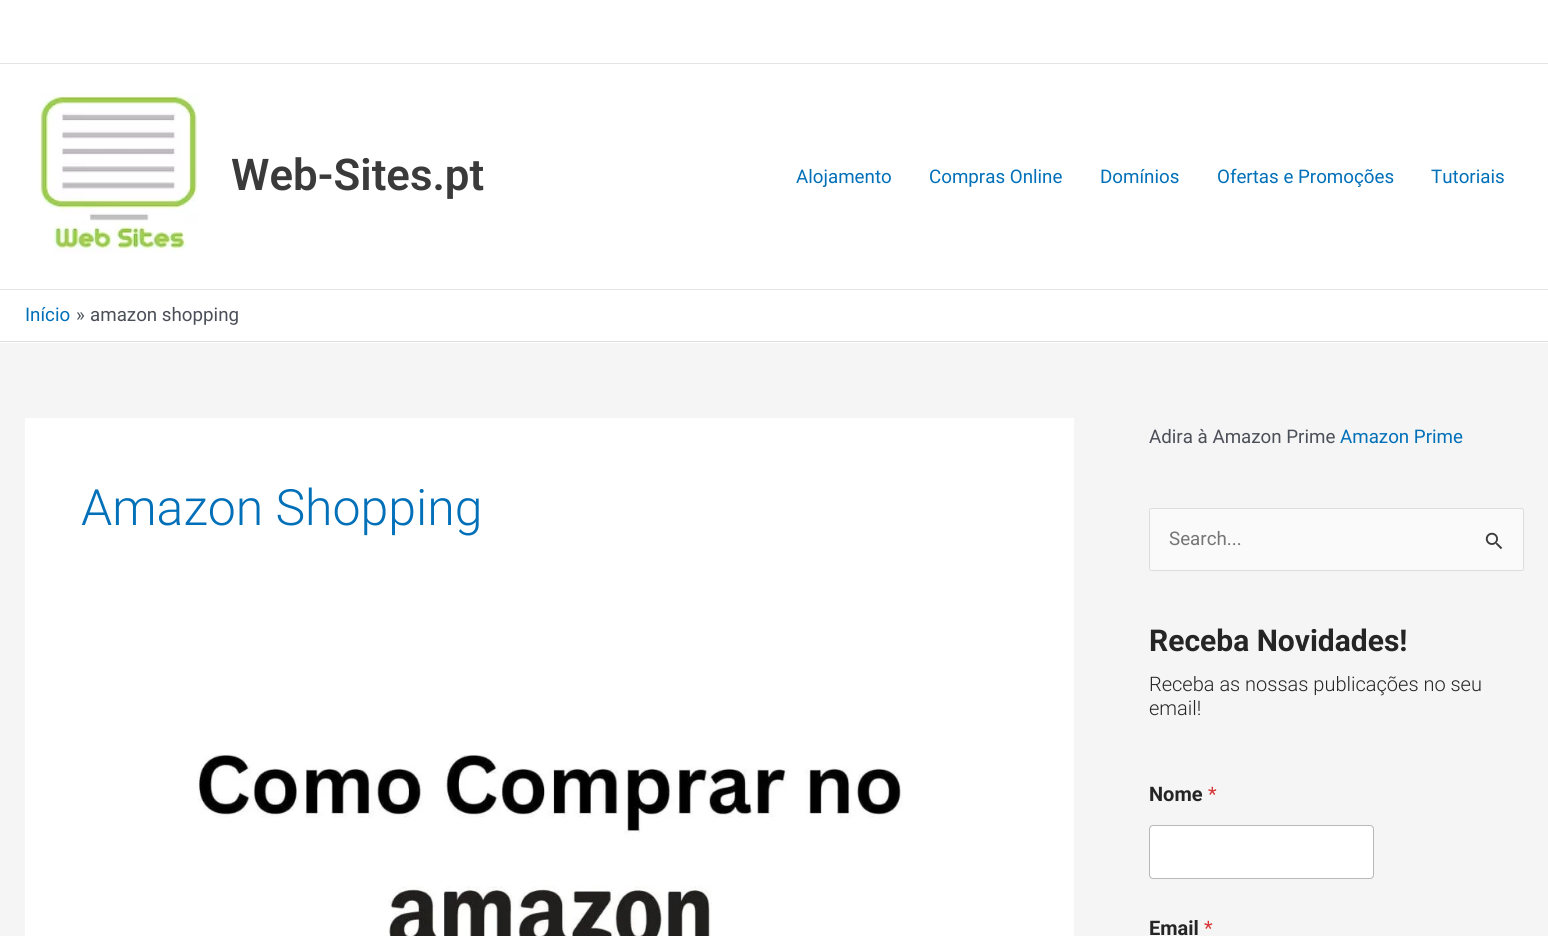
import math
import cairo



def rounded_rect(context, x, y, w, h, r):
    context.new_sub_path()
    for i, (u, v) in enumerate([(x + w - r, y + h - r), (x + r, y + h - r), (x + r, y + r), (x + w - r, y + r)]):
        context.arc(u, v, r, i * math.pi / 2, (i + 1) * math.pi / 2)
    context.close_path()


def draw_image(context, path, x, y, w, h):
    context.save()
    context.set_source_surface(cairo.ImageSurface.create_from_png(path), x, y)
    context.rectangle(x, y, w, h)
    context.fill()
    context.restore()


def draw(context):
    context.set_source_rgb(245 / 255, 245 / 255, 245 / 255)
    context.paint()
    context.set_source_rgb(1, 1, 1)
    context.rectangle(0, 0, 1548, 63)
    context.fill()
    context.set_source_rgb(229 / 255, 229 / 255, 229 / 255)
    context.rectangle(0, 63, 1548, 1)
    context.fill()
    context.set_source_rgb(1, 1, 1)
    context.rectangle(0, 64, 1548, 225)
    context.fill()
    context.set_source_rgb(229 / 255, 229 / 255, 229 / 255)
    context.rectangle(0, 289, 1548, 1)
    context.fill()
    draw_image(context, "images/1.png", 39, 93, 159, 160)
    context.set_source_rgb(1, 1, 1)
    context.rectangle(0, 290, 1548, 53)
    context.fill()
    context.set_source_rgb(221 / 255, 221 / 255, 221 / 255)
    context.rectangle(0, 341, 1548, 1)
    context.fill()
    context.set_source_rgb(1, 1, 1)
    context.rectangle(25, 418, 1049, 518)
    context.fill()
    draw_image(context, "images/2.png", 197, 754, 705, 182)
    context.set_source_rgb(250 / 255, 250 / 255, 250 / 255)
    rounded_rect(context, 1149.5, 508.5, 374, 62, 2)
    context.fill_preserve()
    context.set_source_rgb(221 / 255, 221 / 255, 221 / 255)
    context.set_line_width(1)
    context.stroke()
    draw_image(context, "images/3.png", 1485, 532, 18, 18)
    context.set_source_rgb(1, 1, 1)
    rounded_rect(context, 1150, 826, 223, 52, 2.5)
    context.fill()
    rounded_rect(context, 1149.5, 825.5, 224, 53, 3.5)
    context.set_source_rgb(184 / 255, 184 / 255, 184 / 255)
    context.stroke()
    context.select_font_face("Roboto SemiBold")
    context.set_font_size(43.75)
    context.set_source_rgb(58 / 255, 58 / 255, 58 / 255)
    context.move_to(231, 190)
    context.show_text("Web-Sites.pt")
    context.select_font_face("Roboto")
    context.set_font_size(18.75)
    context.set_source_rgb(1 / 255, 112 / 255, 185 / 255)
    context.move_to(796, 183)
    context.show_text("Alojamento")
    context.move_to(929, 183)
    context.show_text("Compras Online")
    context.move_to(1100, 183)
    context.show_text("Domínios")
    context.move_to(1217, 183)
    context.show_text("Ofertas e Promoções")
    context.move_to(1431, 183)
    context.show_text("Tutoriais")
    context.move_to(25, 321)
    context.show_text("Início")
    context.set_source_rgb(75 / 255, 79 / 255, 88 / 255)
    context.move_to(76, 321)
    context.show_text("»")
    context.move_to(90, 321)
    context.show_text("amazon shopping")
    context.select_font_face("Roboto Light")
    context.set_font_size(50)
    context.set_source_rgb(1 / 255, 112 / 255, 185 / 255)
    context.move_to(81, 525)
    context.show_text("Amazon Shopping")
    context.select_font_face("Roboto")
    context.set_font_size(18.75)
    context.set_source_rgb(75 / 255, 79 / 255, 88 / 255)
    context.move_to(1149, 443)
    context.show_text("Adira à Amazon Prime")
    context.set_source_rgb(1 / 255, 112 / 255, 185 / 255)
    context.move_to(1340, 443)
    context.show_text("Amazon Prime")
    context.set_source_rgb(117 / 255, 117 / 255, 117 / 255)
    context.move_to(1169, 545)
    context.show_text("Search...")
    context.select_font_face("Roboto", cairo.FontSlant.NORMAL, cairo.FontWeight.BOLD)
    context.set_font_size(30)
    context.set_source_rgb(37 / 255, 37 / 255, 37 / 255)
    context.move_to(1149, 651)
    context.show_text("Receba Novidades!")
    context.select_font_face("Roboto Light")
    context.set_font_size(20)
    context.move_to(1149, 691)
    context.show_text("Receba as nossas publicações no seu")
    context.move_to(1149, 715)
    context.show_text("email!")
    context.select_font_face("Roboto", cairo.FontSlant.NORMAL, cairo.FontWeight.BOLD)
    context.move_to(1149, 801)
    context.show_text("Nome")
    context.select_font_face("Roboto")
    context.set_source_rgb(214 / 255, 54 / 255, 55 / 255)
    context.move_to(1208, 801)
    context.show_text("*")
    context.select_font_face("Roboto", cairo.FontSlant.NORMAL, cairo.FontWeight.BOLD)
    context.set_source_rgb(37 / 255, 37 / 255, 37 / 255)
    context.move_to(1149, 935)
    context.show_text("Email")
    context.select_font_face("Roboto")
    context.set_source_rgb(214 / 255, 54 / 255, 55 / 255)
    context.move_to(1204, 935)
    context.show_text("*")


surface = cairo.ImageSurface(cairo.Format.RGB24, 1548, 936)
context = cairo.Context(surface)
options = cairo.FontOptions()
options.set_hint_metrics(cairo.HintMetrics.OFF)
options.set_hint_style(cairo.HintStyle.NONE)
context.set_font_options(options)
context.set_miter_limit(4)
draw(context)
surface.write_to_png("out.png")
